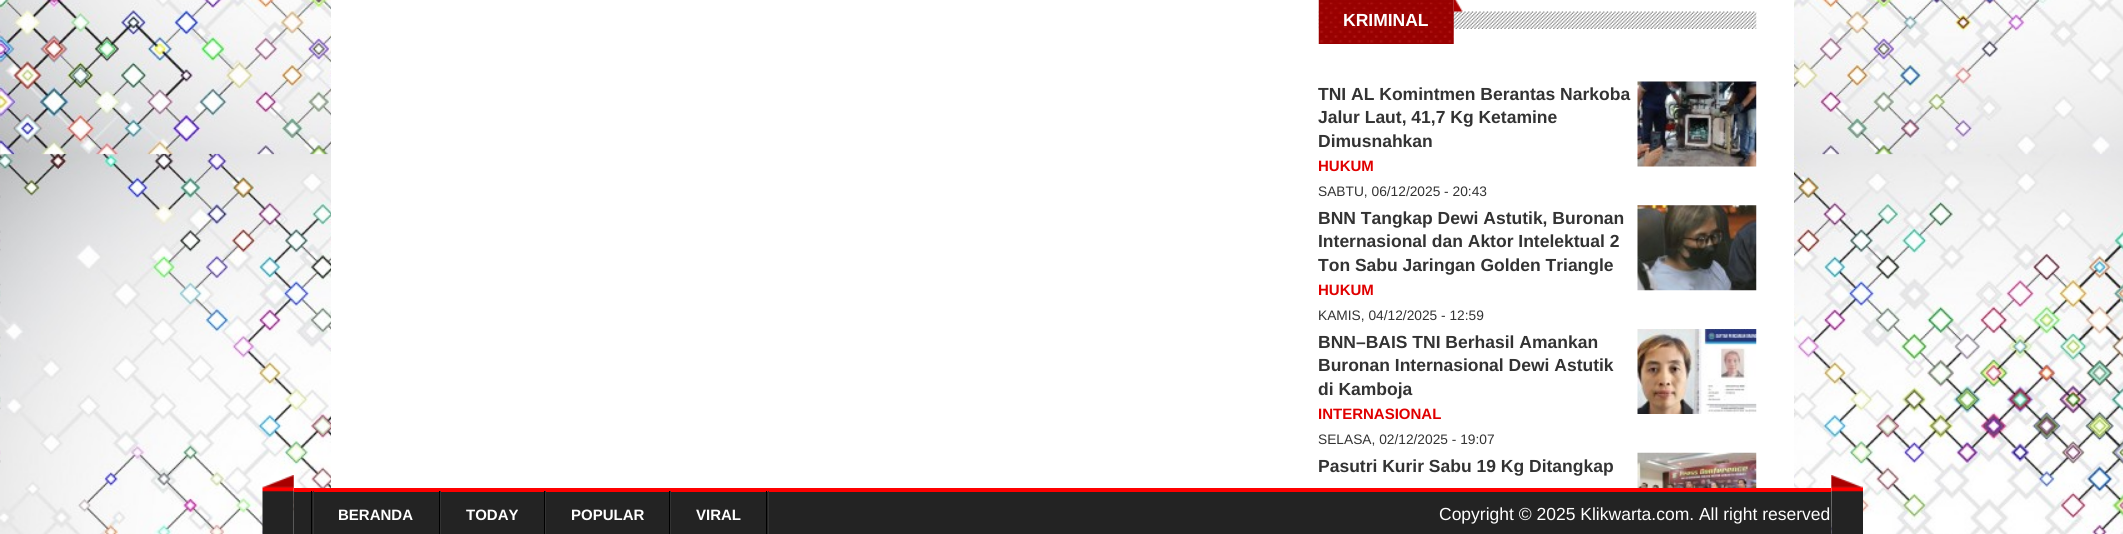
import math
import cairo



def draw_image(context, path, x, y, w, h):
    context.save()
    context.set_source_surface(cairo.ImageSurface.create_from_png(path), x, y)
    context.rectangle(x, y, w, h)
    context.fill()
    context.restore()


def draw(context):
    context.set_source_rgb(1, 1, 1)
    context.paint()
    draw_image(context, "images/1.png", 0, 0, 2123, 534)
    context.set_source_rgb(1, 1, 1)
    context.rectangle(331, 0, 1463, 488)
    context.fill()
    draw_image(context, "images/2.png", 1318, 11, 439, 18)
    draw_image(context, "images/3.png", 1318, 0, 136, 44)
    draw_image(context, "images/4.png", 1453, 0, 10, 13)
    draw_image(context, "images/5.png", 1637, 81, 120, 86)
    draw_image(context, "images/6.png", 1637, 205, 120, 86)
    draw_image(context, "images/7.png", 1637, 329, 120, 85)
    draw_image(context, "images/8.png", 1637, 452, 120, 36)
    context.set_source_rgb(35 / 255, 35 / 255, 35 / 255)
    context.rectangle(294, 492, 1537, 42)
    context.fill()
    context.set_source_rgb(1, 0, 0)
    context.rectangle(294, 488, 1537, 4)
    context.fill()
    draw_image(context, "images/9.png", 262, 475, 32, 59)
    context.set_source_rgb(51 / 255, 51 / 255, 51 / 255)
    context.rectangle(768, 491, 1, 43)
    context.fill()
    context.set_source_rgb(0, 0, 0)
    context.rectangle(311, 491, 1, 43)
    context.fill()
    context.rectangle(439, 491, 1, 43)
    context.fill()
    context.set_source_rgb(51 / 255, 51 / 255, 51 / 255)
    context.rectangle(313, 491, 1, 43)
    context.fill()
    context.set_source_rgb(0, 0, 0)
    context.rectangle(544, 491, 1, 43)
    context.fill()
    context.set_source_rgb(51 / 255, 51 / 255, 51 / 255)
    context.rectangle(440, 491, 1, 43)
    context.fill()
    context.set_source_rgb(0, 0, 0)
    context.rectangle(669, 491, 1, 43)
    context.fill()
    context.set_source_rgb(51 / 255, 51 / 255, 51 / 255)
    context.rectangle(545, 491, 1, 43)
    context.fill()
    context.set_source_rgb(0, 0, 0)
    context.rectangle(766, 491, 1, 43)
    context.fill()
    context.set_source_rgb(51 / 255, 51 / 255, 51 / 255)
    context.rectangle(670, 491, 1, 43)
    context.fill()
    draw_image(context, "images/10.png", 1831, 475, 32, 59)
    context.select_font_face("Liberation Sans", cairo.FontSlant.NORMAL, cairo.FontWeight.BOLD)
    context.set_font_size(17.5)
    context.set_source_rgb(1, 1, 1)
    context.move_to(1343, 26)
    context.show_text("KRIMINAL")
    context.set_source_rgb(51 / 255, 51 / 255, 51 / 255)
    context.move_to(1318, 100)
    context.show_text("TNI AL Komintmen Berantas Narkoba")
    context.move_to(1318, 123)
    context.show_text("Jalur Laut, 41,7 Kg Ketamine")
    context.move_to(1318, 147)
    context.show_text("Dimusnahkan")
    context.set_font_size(15)
    context.set_source_rgb(224 / 255, 0, 0)
    context.move_to(1318, 171)
    context.show_text("HUKUM")
    context.select_font_face("Liberation Sans")
    context.set_font_size(13.75)
    context.set_source_rgb(51 / 255, 51 / 255, 51 / 255)
    context.move_to(1318, 196)
    context.show_text("SABTU, 06/12/2025 - 20:43")
    context.select_font_face("Liberation Sans", cairo.FontSlant.NORMAL, cairo.FontWeight.BOLD)
    context.set_font_size(17.5)
    context.move_to(1318, 224)
    context.show_text("BNN Tangkap Dewi Astutik, Buronan")
    context.move_to(1318, 247)
    context.show_text("Internasional dan Aktor Intelektual 2")
    context.move_to(1318, 271)
    context.show_text("Ton Sabu Jaringan Golden Triangle")
    context.set_font_size(15)
    context.set_source_rgb(224 / 255, 0, 0)
    context.move_to(1318, 295)
    context.show_text("HUKUM")
    context.select_font_face("Liberation Sans")
    context.set_font_size(13.75)
    context.set_source_rgb(51 / 255, 51 / 255, 51 / 255)
    context.move_to(1318, 320)
    context.show_text("KAMIS, 04/12/2025 - 12:59")
    context.select_font_face("Liberation Sans", cairo.FontSlant.NORMAL, cairo.FontWeight.BOLD)
    context.set_font_size(17.5)
    context.move_to(1318, 348)
    context.show_text("BNN–BAIS TNI Berhasil Amankan")
    context.move_to(1318, 371)
    context.show_text("Buronan Internasional Dewi Astutik")
    context.move_to(1318, 395)
    context.show_text("di Kamboja")
    context.set_font_size(15)
    context.set_source_rgb(224 / 255, 0, 0)
    context.move_to(1318, 419)
    context.show_text("INTERNASIONAL")
    context.select_font_face("Liberation Sans")
    context.set_font_size(13.75)
    context.set_source_rgb(51 / 255, 51 / 255, 51 / 255)
    context.move_to(1318, 444)
    context.show_text("SELASA, 02/12/2025 - 19:07")
    context.select_font_face("Liberation Sans", cairo.FontSlant.NORMAL, cairo.FontWeight.BOLD)
    context.set_font_size(17.5)
    context.move_to(1318, 472)
    context.show_text("Pasutri Kurir Sabu 19 Kg Ditangkap")
    context.set_font_size(15)
    context.set_source_rgb(1, 1, 1)
    context.move_to(338, 520)
    context.show_text("BERANDA")
    context.move_to(466, 520)
    context.show_text("TODAY")
    context.move_to(571, 520)
    context.show_text("POPULAR")
    context.move_to(696, 520)
    context.show_text("VIRAL")
    context.select_font_face("Liberation Sans")
    context.set_font_size(17.5)
    context.move_to(1439, 520)
    context.show_text("Copyright © 2025 Klikwarta.com. All right reserved")


surface = cairo.ImageSurface(cairo.Format.RGB24, 2123, 534)
context = cairo.Context(surface)
options = cairo.FontOptions()
options.set_hint_metrics(cairo.HintMetrics.OFF)
options.set_hint_style(cairo.HintStyle.NONE)
context.set_font_options(options)
context.set_miter_limit(4)
draw(context)
surface.write_to_png("out.png")
